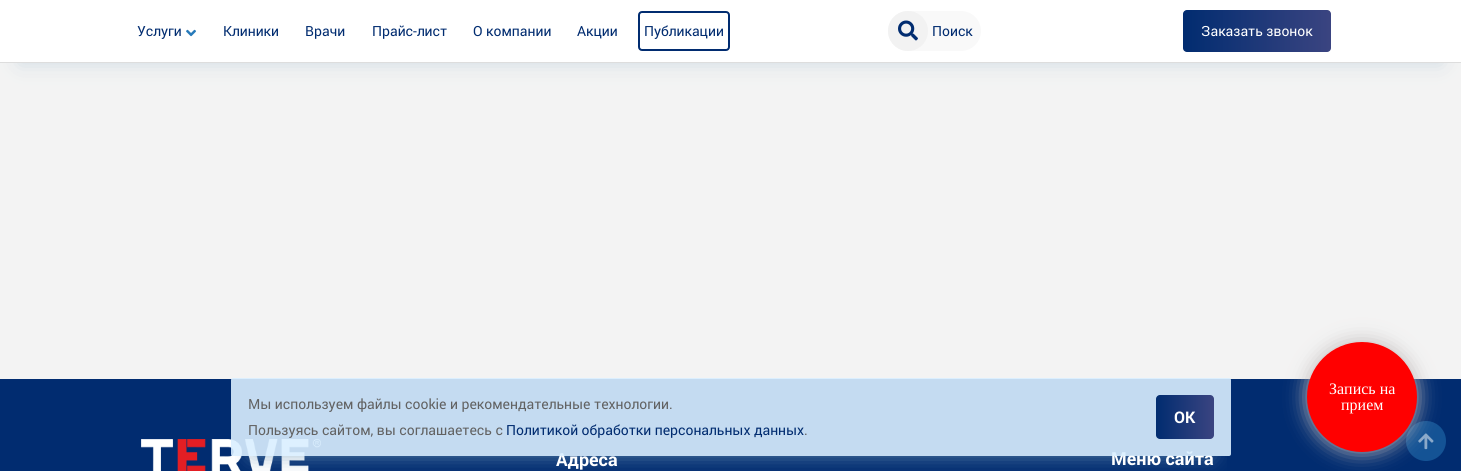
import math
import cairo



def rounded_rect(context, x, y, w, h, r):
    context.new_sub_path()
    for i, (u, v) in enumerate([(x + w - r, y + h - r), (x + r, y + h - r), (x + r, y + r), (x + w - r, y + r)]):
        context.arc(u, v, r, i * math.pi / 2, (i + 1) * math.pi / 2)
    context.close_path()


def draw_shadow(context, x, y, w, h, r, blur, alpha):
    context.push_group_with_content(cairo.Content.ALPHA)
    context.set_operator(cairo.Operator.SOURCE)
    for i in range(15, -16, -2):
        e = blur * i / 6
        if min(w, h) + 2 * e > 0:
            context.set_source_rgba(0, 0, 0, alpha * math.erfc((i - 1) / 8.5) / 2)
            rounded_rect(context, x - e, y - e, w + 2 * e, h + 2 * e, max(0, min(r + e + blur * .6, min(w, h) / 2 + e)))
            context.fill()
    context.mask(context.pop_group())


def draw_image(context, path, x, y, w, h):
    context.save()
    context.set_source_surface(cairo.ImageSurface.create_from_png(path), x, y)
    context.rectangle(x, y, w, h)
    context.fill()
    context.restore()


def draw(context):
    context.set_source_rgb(1 / 255, 44 / 255, 112 / 255)
    context.paint()
    context.set_source_rgb(243 / 255, 243 / 255, 243 / 255)
    context.rectangle(0, 63, 1461, 316)
    context.fill()
    context.set_source_rgb(120 / 255, 160 / 255, 190 / 255)
    draw_shadow(context, 20, 40, 1421, 23, 0, 10, 0.3)
    context.set_source_rgb(1, 1, 1)
    context.rectangle(0, 0, 1461, 62)
    context.fill()
    context.set_source_rgb(221 / 255, 221 / 255, 221 / 255)
    context.rectangle(0, 62, 1461, 1)
    context.fill()
    draw_image(context, "images/1.png", 186, 29, 10, 8)
    rounded_rect(context, 639, 12, 90, 38, 3)
    context.set_source_rgb(1 / 255, 44 / 255, 112 / 255)
    context.stroke()
    context.set_source_rgb(249 / 255, 249 / 255, 249 / 255)
    rounded_rect(context, 888, 11, 93, 40, 20)
    context.fill()
    context.set_source_rgb(242 / 255, 242 / 255, 242 / 255)
    context.arc(908, 31, 20, 0, 2 * math.pi)
    context.fill()
    draw_image(context, "images/2.png", 898, 20, 20, 21)
    gradient = cairo.LinearGradient(1183, 31, 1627, 31)
    gradient.add_color_stop_rgba(0, 1 / 255, 44 / 255, 112 / 255, 1)
    gradient.add_color_stop_rgba(0.4, 70 / 255, 73 / 255, 132 / 255, 1)
    gradient.add_color_stop_rgba(0.68, 254 / 255, 0, 0, 1)
    gradient.add_color_stop_rgba(1, 254 / 255, 0, 0, 1)
    context.set_source(gradient)
    rounded_rect(context, 1183, 10, 148, 42, 4)
    context.fill()
    draw_image(context, "images/3.png", 141, 439, 180, 32)
    context.save()
    context.rectangle(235, 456, 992, 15)
    context.clip()
    context.set_source_rgb(120 / 255, 160 / 255, 190 / 255)
    draw_shadow(context, 251, 418, 960, 38, 0, 10, 0.7)
    context.restore()
    context.set_source_rgb(20 / 255, 83 / 255, 149 / 255)
    context.arc(1426, 441, 20, 0, 2 * math.pi)
    context.fill()
    draw_image(context, "images/4.png", 1418, 433, 16, 17)
    context.set_source_rgb(193 / 255, 187 / 255, 187 / 255)
    draw_shadow(context, 1307, 342, 110, 110, 55, 10, 1)
    context.set_source_rgb(1, 0, 0)
    context.arc(1362, 397, 55, 0, 2 * math.pi)
    context.fill()
    context.select_font_face("Roboto")
    context.set_font_size(14)
    context.set_source_rgb(1 / 255, 44 / 255, 112 / 255)
    context.move_to(137, 36)
    context.show_text("Услуги")
    context.move_to(223, 36)
    context.show_text("Клиники")
    context.move_to(305, 36)
    context.show_text("Врачи")
    context.move_to(372, 36)
    context.show_text("Прайс-лист")
    context.move_to(473, 36)
    context.show_text("О компании")
    context.move_to(577, 36)
    context.show_text("Акции")
    context.move_to(644, 36)
    context.show_text("Публикации")
    context.move_to(932, 36)
    context.show_text("Поиск")
    context.set_source_rgb(1, 1, 1)
    context.move_to(1201, 36)
    context.show_text("Заказать звонок")
    context.select_font_face("Roboto", cairo.FontSlant.NORMAL, cairo.FontWeight.BOLD)
    context.set_font_size(18)
    context.move_to(556, 466)
    context.show_text("Адреса")
    context.move_to(1111, 465)
    context.show_text("Меню сайта")
    context.set_source_rgba(217 / 255, 239 / 255, 1, 0.9)
    rounded_rect(context, 231, 378, 1000, 78, 2)
    context.fill()
    gradient = cairo.LinearGradient(1156, 417, 1330, 417)
    gradient.add_color_stop_rgba(0, 1 / 255, 44 / 255, 112 / 255, 1)
    gradient.add_color_stop_rgba(0.4, 70 / 255, 73 / 255, 132 / 255, 1)
    gradient.add_color_stop_rgba(0.68, 254 / 255, 0, 0, 1)
    gradient.add_color_stop_rgba(1, 254 / 255, 0, 0, 1)
    context.set_source(gradient)
    rounded_rect(context, 1156, 395, 58, 44, 4)
    context.fill()
    context.set_font_size(16)
    context.set_source_rgb(1, 1, 1)
    context.move_to(1174, 423)
    context.show_text("ОК")
    context.select_font_face("Roboto")
    context.set_font_size(14)
    context.set_source_rgb(98 / 255, 98 / 255, 98 / 255)
    context.move_to(804, 435)
    context.show_text(".")
    context.set_source_rgb(1 / 255, 44 / 255, 112 / 255)
    context.move_to(506, 435)
    context.show_text("Политикой обработки персональных данных")
    context.set_source_rgb(98 / 255, 98 / 255, 98 / 255)
    context.move_to(248, 435)
    context.show_text("Пользуясь сайтом, вы соглашаетесь с")
    context.move_to(248, 409)
    context.show_text("Мы используем файлы cookie и рекомендательные технологии.")
    context.select_font_face("Liberation Serif")
    context.set_font_size(16)
    context.set_source_rgb(1, 1, 1)
    context.move_to(1329, 394)
    context.show_text("Запись на")
    context.move_to(1341, 410)
    context.show_text("прием")


surface = cairo.ImageSurface(cairo.Format.RGB24, 1461, 471)
context = cairo.Context(surface)
options = cairo.FontOptions()
options.set_hint_metrics(cairo.HintMetrics.OFF)
options.set_hint_style(cairo.HintStyle.NONE)
context.set_font_options(options)
context.set_miter_limit(4)
draw(context)
surface.write_to_png("out.png")
